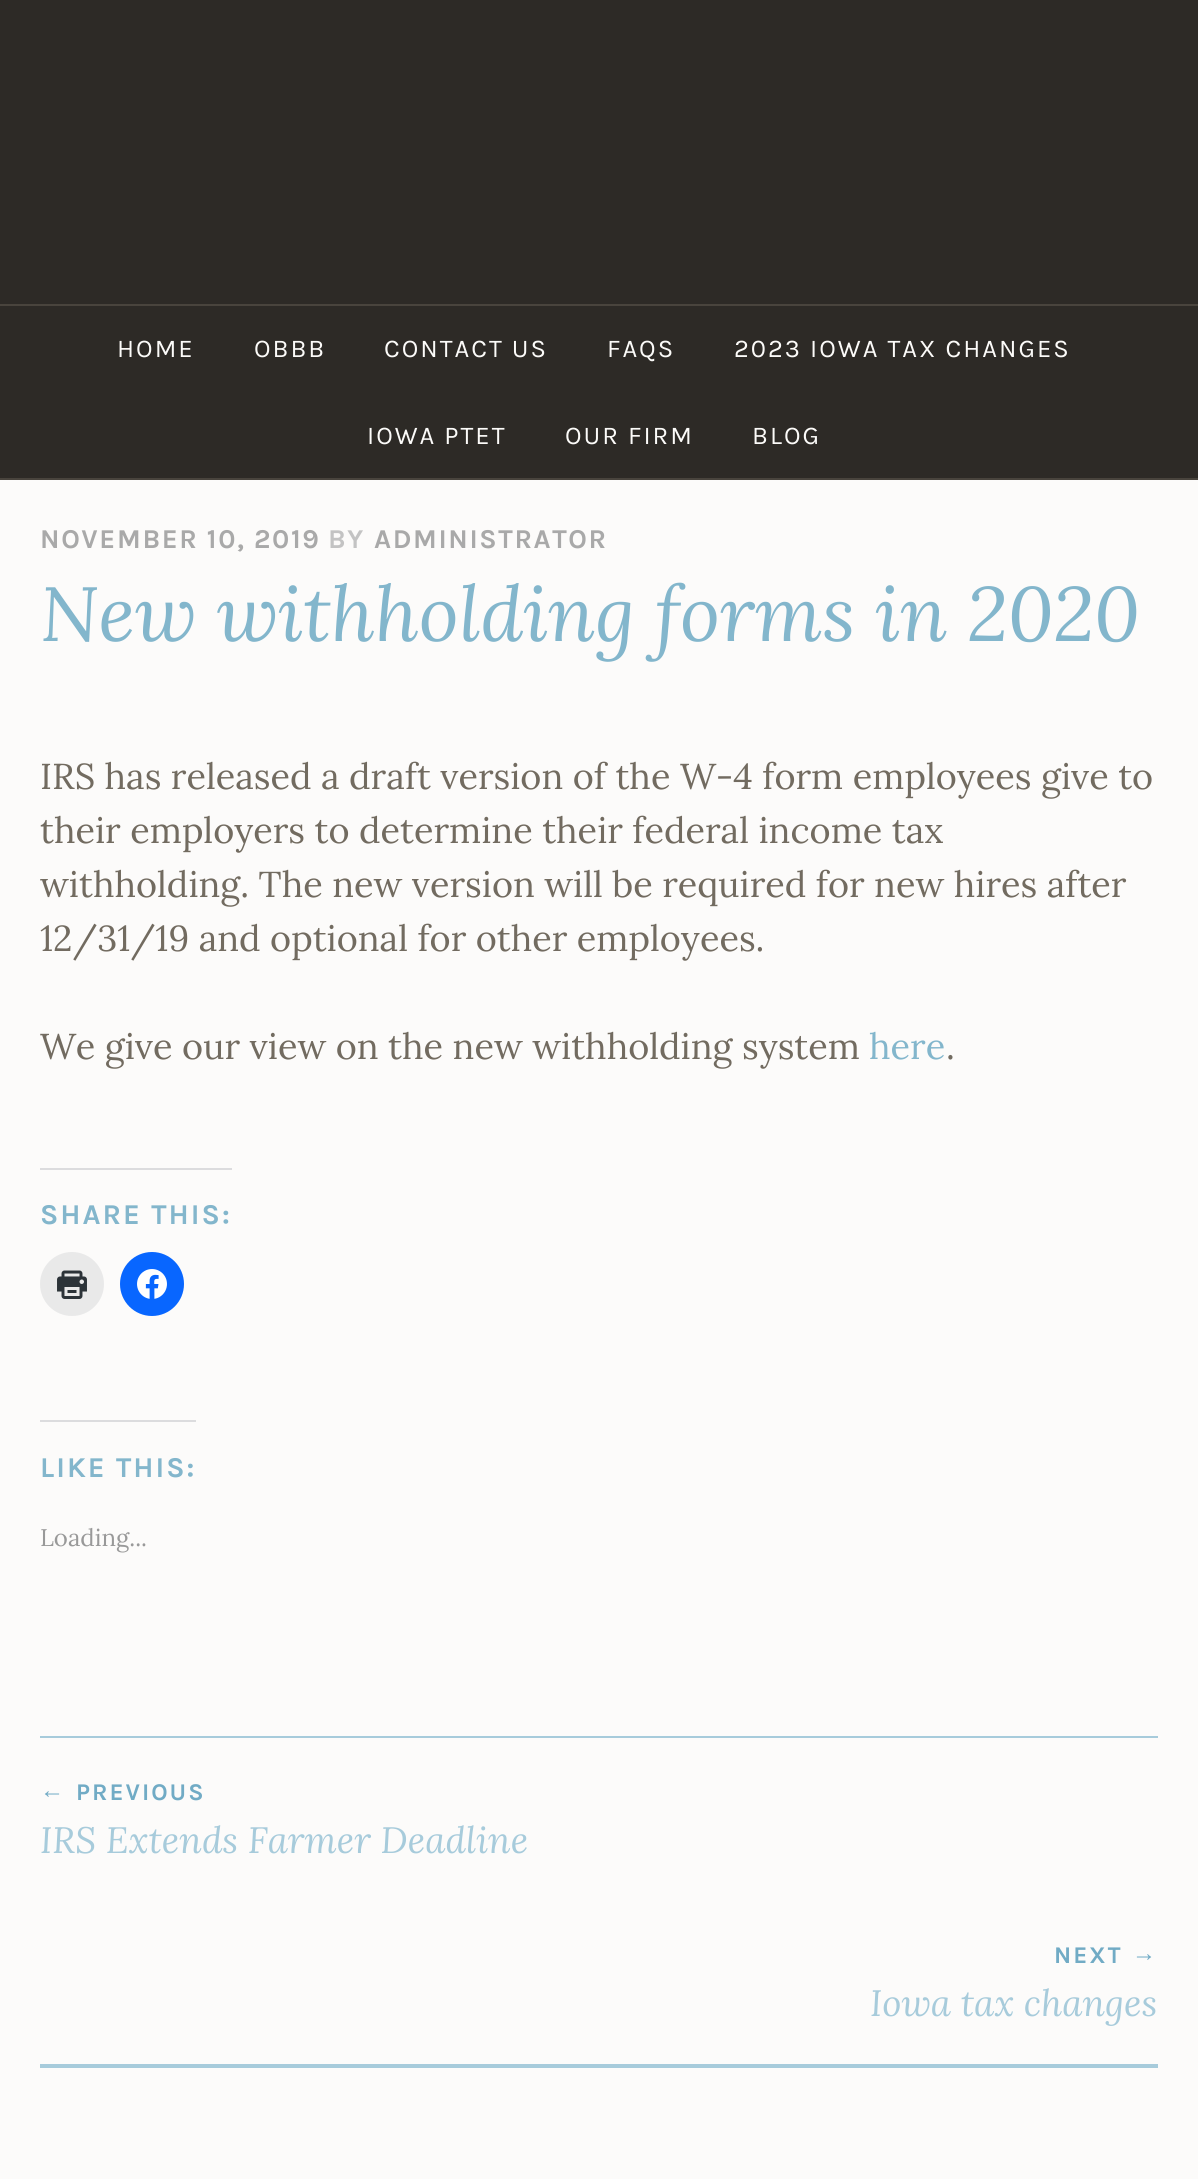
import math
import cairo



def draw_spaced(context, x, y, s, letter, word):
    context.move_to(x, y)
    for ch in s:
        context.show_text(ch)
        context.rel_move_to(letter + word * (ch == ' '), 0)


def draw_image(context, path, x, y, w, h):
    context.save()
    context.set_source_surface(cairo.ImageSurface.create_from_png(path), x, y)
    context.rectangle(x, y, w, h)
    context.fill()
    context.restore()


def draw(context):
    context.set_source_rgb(252 / 255, 251 / 255, 250 / 255)
    context.paint()
    context.set_source_rgb(45 / 255, 42 / 255, 38 / 255)
    context.rectangle(0, 0, 1198, 478)
    context.fill()
    context.set_source_rgb(73 / 255, 68 / 255, 61 / 255)
    context.rectangle(0, 304, 1198, 2)
    context.fill()
    context.rectangle(0, 478, 1198, 2)
    context.fill()
    context.set_source_rgb(220 / 255, 220 / 255, 222 / 255)
    context.rectangle(40, 1168, 192, 2)
    context.fill()
    context.set_source_rgb(233 / 255, 233 / 255, 233 / 255)
    context.arc(72, 1284, 32, 0, 2 * math.pi)
    context.fill()
    draw_image(context, "images/1.png", 57, 1270, 30, 29)
    context.set_source_rgb(8 / 255, 102 / 255, 1)
    context.arc(152, 1284, 32, 0, 2 * math.pi)
    context.fill()
    draw_image(context, "images/2.png", 137, 1269, 30, 30)
    context.set_source_rgb(220 / 255, 220 / 255, 222 / 255)
    context.rectangle(40, 1420, 156, 2)
    context.fill()
    context.set_source_rgb(167 / 255, 203 / 255, 219 / 255)
    context.rectangle(40, 1736, 1118, 2)
    context.fill()
    context.rectangle(40, 2064, 1118, 4)
    context.fill()
    context.select_font_face("Karla")
    context.set_font_size(25.6)
    context.set_source_rgb(252 / 255, 251 / 255, 249 / 255)
    draw_spaced(context, 117, 357, "HOME", 2, 0)
    draw_spaced(context, 254, 357, "OBBB", 2, 0)
    draw_spaced(context, 384, 357, "CONTACT US", 2, 0)
    draw_spaced(context, 607, 357, "FAQS", 2, 0)
    draw_spaced(context, 734, 357, "2023 IOWA TAX CHANGES", 2, 0)
    draw_spaced(context, 367, 444, "IOWA PTET", 2, 0)
    draw_spaced(context, 565, 444, "OUR FIRM", 2, 0)
    draw_spaced(context, 752, 444, "BLOG", 2, 0)
    context.select_font_face("Karla", cairo.FontSlant.NORMAL, cairo.FontWeight.BOLD)
    context.set_font_size(27.25)
    context.set_source_rgb(169 / 255, 169 / 255, 169 / 255)
    draw_spaced(context, 40, 548, "NOVEMBER 10, 2019", 1.6, 0)
    context.set_source_rgb(195 / 255, 195 / 255, 195 / 255)
    draw_spaced(context, 328, 548, "BY", 1.6, 0)
    context.set_source_rgb(169 / 255, 169 / 255, 169 / 255)
    draw_spaced(context, 374, 548, "ADMINISTRATOR", 1.6, 0)
    context.select_font_face("Lora", cairo.FontSlant.ITALIC)
    context.set_font_size(76.75)
    context.set_source_rgb(131 / 255, 182 / 255, 204 / 255)
    context.move_to(40, 641)
    context.show_text("New withholding forms in 2020")
    context.select_font_face("Lora")
    context.set_font_size(36)
    context.set_source_rgb(114 / 255, 107 / 255, 96 / 255)
    context.move_to(40, 789)
    context.show_text("IRS has released a draft version of the W-4 form employees give to")
    context.move_to(40, 843)
    context.show_text("their employers to determine their federal income tax")
    context.move_to(40, 897)
    context.show_text("withholding. The new version will be required for new hires after")
    context.move_to(40, 951)
    context.show_text("12/31/19 and optional for other employees.")
    context.move_to(40, 1059)
    context.show_text("We give our view on the new withholding system")
    context.set_source_rgb(131 / 255, 182 / 255, 204 / 255)
    context.move_to(869, 1059)
    context.show_text("here")
    context.set_source_rgb(114 / 255, 107 / 255, 96 / 255)
    context.move_to(946, 1059)
    context.show_text(".")
    context.select_font_face("Karla", cairo.FontSlant.NORMAL, cairo.FontWeight.BOLD)
    context.set_font_size(28.75)
    context.set_source_rgb(131 / 255, 182 / 255, 204 / 255)
    draw_spaced(context, 40, 1224, "SHARE THIS:", 2, 0)
    draw_spaced(context, 40, 1477, "LIKE THIS:", 2, 0)
    context.select_font_face("Lora")
    context.set_font_size(24)
    context.set_source_rgb(153 / 255, 153 / 255, 153 / 255)
    context.move_to(40, 1546)
    context.show_text("Loading...")
    context.select_font_face("Liberation Serif")
    context.set_source_rgb(113 / 255, 171 / 255, 197 / 255)
    draw_spaced(context, 40, 1798, "←", 2, 0)
    context.select_font_face("Karla", cairo.FontSlant.NORMAL, cairo.FontWeight.BOLD)
    draw_spaced(context, 76, 1800, "PREVIOUS", 2, 0)
    context.select_font_face("Lora", cairo.FontSlant.ITALIC)
    context.set_font_size(36.75)
    context.set_source_rgb(167 / 255, 203 / 255, 219 / 255)
    context.move_to(40, 1853)
    context.show_text("IRS Extends Farmer Deadline")
    context.select_font_face("Karla", cairo.FontSlant.NORMAL, cairo.FontWeight.BOLD)
    context.set_font_size(24)
    context.set_source_rgb(113 / 255, 171 / 255, 197 / 255)
    draw_spaced(context, 1054, 1963, "NEXT", 2, 0)
    context.select_font_face("Liberation Serif")
    draw_spaced(context, 1132, 1961, "→", 2, 0)
    context.select_font_face("Lora", cairo.FontSlant.ITALIC)
    context.set_font_size(36.75)
    context.set_source_rgb(167 / 255, 203 / 255, 219 / 255)
    context.move_to(870, 2016)
    context.show_text("Iowa tax changes")


surface = cairo.ImageSurface(cairo.Format.RGB24, 1198, 2179)
context = cairo.Context(surface)
options = cairo.FontOptions()
options.set_hint_metrics(cairo.HintMetrics.OFF)
options.set_hint_style(cairo.HintStyle.NONE)
context.set_font_options(options)
context.set_miter_limit(4)
draw(context)
surface.write_to_png("out.png")
